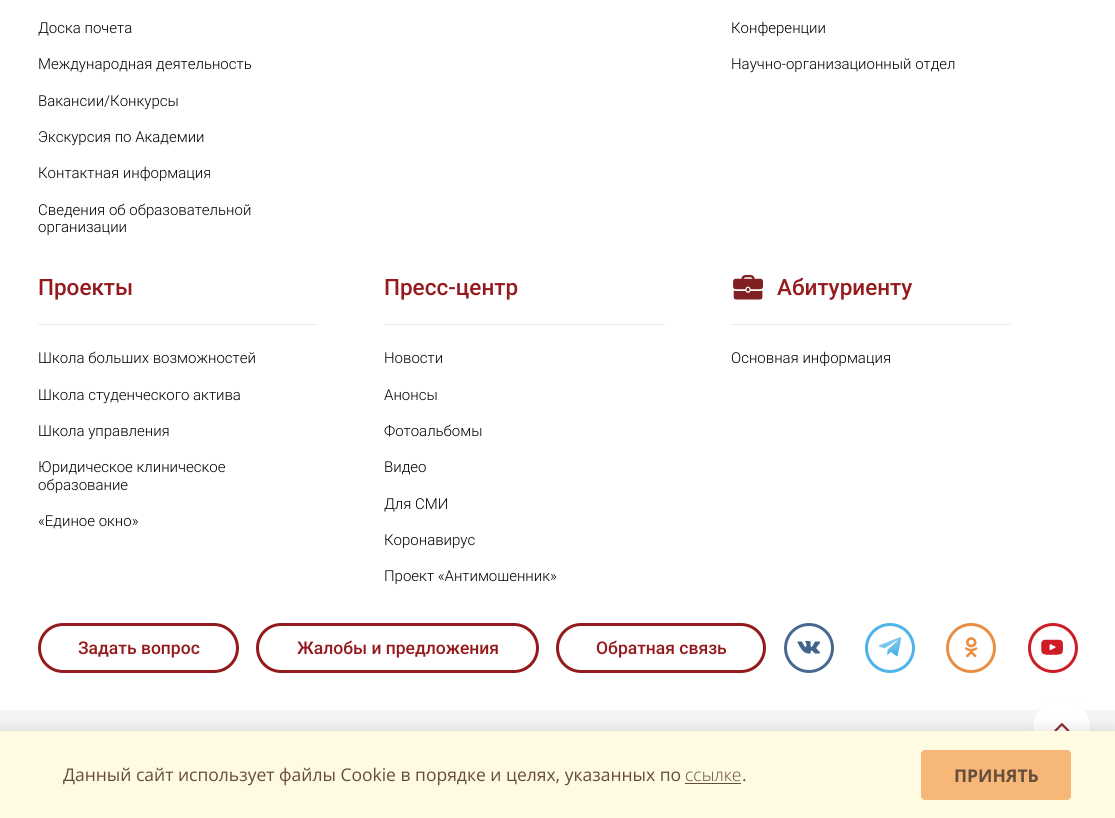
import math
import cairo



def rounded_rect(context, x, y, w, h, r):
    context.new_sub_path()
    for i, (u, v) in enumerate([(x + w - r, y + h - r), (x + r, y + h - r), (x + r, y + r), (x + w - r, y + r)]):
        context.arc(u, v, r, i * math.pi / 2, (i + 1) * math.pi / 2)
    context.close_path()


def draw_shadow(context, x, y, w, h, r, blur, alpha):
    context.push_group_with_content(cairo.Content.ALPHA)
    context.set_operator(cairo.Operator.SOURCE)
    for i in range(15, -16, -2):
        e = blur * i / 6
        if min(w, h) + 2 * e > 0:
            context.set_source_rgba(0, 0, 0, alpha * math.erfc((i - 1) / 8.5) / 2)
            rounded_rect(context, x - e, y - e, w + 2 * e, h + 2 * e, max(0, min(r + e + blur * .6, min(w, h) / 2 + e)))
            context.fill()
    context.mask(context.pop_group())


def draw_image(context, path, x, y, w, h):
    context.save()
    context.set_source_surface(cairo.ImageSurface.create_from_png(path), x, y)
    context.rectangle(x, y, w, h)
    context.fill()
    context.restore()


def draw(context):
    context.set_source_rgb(1, 1, 1)
    context.paint()
    context.set_source_rgb(234 / 255, 234 / 255, 234 / 255)
    context.rectangle(38, 324, 280, 1)
    context.fill()
    context.rectangle(384, 324, 281, 1)
    context.fill()
    draw_image(context, "images/1.png", 733, 275, 30, 25)
    context.rectangle(731, 324, 280, 1)
    context.fill()
    rounded_rect(context, 39.5, 624.5, 198, 47, 23.5)
    context.set_source_rgb(149 / 255, 26 / 255, 29 / 255)
    context.set_line_width(3)
    context.stroke()
    rounded_rect(context, 257.5, 624.5, 280, 47, 23.5)
    context.stroke()
    rounded_rect(context, 557.5, 624.5, 207, 47, 23.5)
    context.stroke()
    context.arc(809, 648, 23.5, 0, 2 * math.pi)
    context.set_source_rgb(73 / 255, 104 / 255, 144 / 255)
    context.stroke()
    draw_image(context, "images/2.png", 797, 641, 23, 13)
    context.arc(890, 648, 23.5, 0, 2 * math.pi)
    context.set_source_rgb(77 / 255, 179 / 255, 232 / 255)
    context.stroke()
    draw_image(context, "images/3.png", 878, 637, 24, 19)
    context.arc(971, 648, 23.5, 0, 2 * math.pi)
    context.set_source_rgb(233 / 255, 143 / 255, 69 / 255)
    context.stroke()
    draw_image(context, "images/4.png", 965, 637, 13, 21)
    context.arc(1053, 648, 23.5, 0, 2 * math.pi)
    context.set_source_rgb(206 / 255, 29 / 255, 39 / 255)
    context.stroke()
    draw_image(context, "images/5.png", 1041, 639, 22, 16)
    context.set_source_rgb(245 / 255, 245 / 255, 245 / 255)
    context.rectangle(0, 710, 1115, 21)
    context.fill()
    context.set_source_rgb(0, 0, 0)
    draw_shadow(context, 1033, 701, 57, 58, 28.5, 2.5, 0.05)
    context.set_source_rgb(1, 1, 1)
    context.arc(1061.5, 727.5, 28, 0, 2 * math.pi)
    context.fill_preserve()
    context.set_line_width(1)
    context.stroke()
    draw_image(context, "images/6.png", 1054, 723, 17, 8)
    context.set_source_rgb(0, 0, 0)
    draw_shadow(context, 0, 728, 1115, 87, 0, 6, 0.1)
    context.set_source_rgb(1, 250 / 255, 226 / 255)
    context.rectangle(0, 731, 1115, 87)
    context.fill()
    context.set_source_rgb(101 / 255, 77 / 255, 59 / 255)
    context.rectangle(685, 783, 56, 1)
    context.fill()
    context.set_source_rgb(246 / 255, 183 / 255, 120 / 255)
    rounded_rect(context, 921, 750, 150, 50, 4)
    context.fill()
    context.select_font_face("Roboto Light")
    context.set_font_size(15)
    context.set_source_rgb(0, 0, 0)
    context.move_to(38, 33)
    context.show_text("Доска почета")
    context.move_to(38, 69)
    context.show_text("Международная деятельность")
    context.move_to(38, 106)
    context.show_text("Вакансии/Конкурсы")
    context.move_to(38, 142)
    context.show_text("Экскурсия по Академии")
    context.move_to(38, 178)
    context.show_text("Контактная информация")
    context.move_to(38, 215)
    context.show_text("Сведения об образовательной")
    context.move_to(38, 232)
    context.show_text("организации")
    context.move_to(731, 33)
    context.show_text("Конференции")
    context.move_to(731, 69)
    context.show_text("Научно-организационный отдел")
    context.select_font_face("Roboto Medium")
    context.set_font_size(22.5)
    context.set_source_rgb(149 / 255, 26 / 255, 29 / 255)
    context.move_to(38, 295)
    context.show_text("Проекты")
    context.select_font_face("Roboto Light")
    context.set_font_size(15)
    context.set_source_rgb(0, 0, 0)
    context.move_to(38, 363)
    context.show_text("Школа больших возможностей")
    context.move_to(38, 400)
    context.show_text("Школа студенческого актива")
    context.move_to(38, 436)
    context.show_text("Школа управления")
    context.move_to(38, 472)
    context.show_text("Юридическое клиническое")
    context.move_to(38, 490)
    context.show_text("образование")
    context.move_to(38, 526)
    context.show_text("«Единое окно»")
    context.select_font_face("Roboto Medium")
    context.set_font_size(22.5)
    context.set_source_rgb(149 / 255, 26 / 255, 29 / 255)
    context.move_to(384, 295)
    context.show_text("Пресс-центр")
    context.select_font_face("Roboto Light")
    context.set_font_size(15)
    context.set_source_rgb(0, 0, 0)
    context.move_to(384, 363)
    context.show_text("Новости")
    context.move_to(384, 400)
    context.show_text("Анонсы")
    context.move_to(384, 436)
    context.show_text("Фотоальбомы")
    context.move_to(384, 472)
    context.show_text("Видео")
    context.move_to(384, 509)
    context.show_text("Для СМИ")
    context.move_to(384, 545)
    context.show_text("Коронавирус")
    context.move_to(384, 581)
    context.show_text("Проект «Антимошенник»")
    context.select_font_face("Roboto Medium")
    context.set_font_size(22.5)
    context.set_source_rgb(149 / 255, 26 / 255, 29 / 255)
    context.move_to(777, 295)
    context.show_text("Абитуриенту")
    context.select_font_face("Roboto Light")
    context.set_font_size(15)
    context.set_source_rgb(0, 0, 0)
    context.move_to(731, 363)
    context.show_text("Основная информация")
    context.select_font_face("Roboto Medium")
    context.set_font_size(17.5)
    context.set_source_rgb(149 / 255, 26 / 255, 29 / 255)
    context.move_to(78, 654)
    context.show_text("Задать вопрос")
    context.move_to(297, 654)
    context.show_text("Жалобы и предложения")
    context.move_to(596, 654)
    context.show_text("Обратная связь")
    context.select_font_face("Open Sans")
    context.set_source_rgb(101 / 255, 77 / 255, 59 / 255)
    context.move_to(63, 781)
    context.show_text("Данный сайт использует файлы Cookie в порядке и целях, указанных по")
    context.select_font_face("Open Sans Light")
    context.move_to(685, 781)
    context.show_text("ссылке")
    context.select_font_face("Open Sans")
    context.move_to(742, 781)
    context.show_text(".")
    context.select_font_face("Open Sans", cairo.FontSlant.NORMAL, cairo.FontWeight.BOLD)
    context.move_to(954, 782)
    context.show_text("ПРИНЯТЬ")


surface = cairo.ImageSurface(cairo.Format.RGB24, 1115, 818)
context = cairo.Context(surface)
options = cairo.FontOptions()
options.set_hint_metrics(cairo.HintMetrics.OFF)
options.set_hint_style(cairo.HintStyle.NONE)
context.set_font_options(options)
context.set_miter_limit(4)
draw(context)
surface.write_to_png("out.png")
